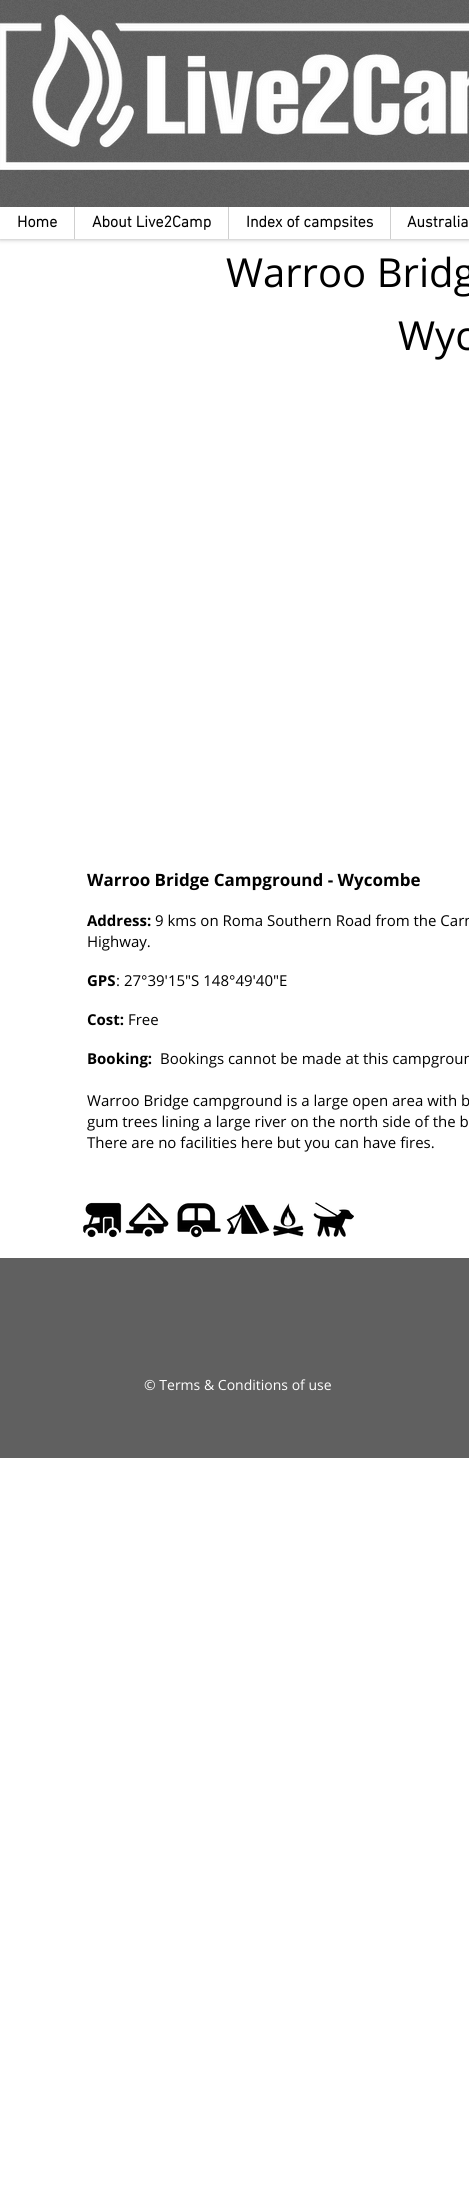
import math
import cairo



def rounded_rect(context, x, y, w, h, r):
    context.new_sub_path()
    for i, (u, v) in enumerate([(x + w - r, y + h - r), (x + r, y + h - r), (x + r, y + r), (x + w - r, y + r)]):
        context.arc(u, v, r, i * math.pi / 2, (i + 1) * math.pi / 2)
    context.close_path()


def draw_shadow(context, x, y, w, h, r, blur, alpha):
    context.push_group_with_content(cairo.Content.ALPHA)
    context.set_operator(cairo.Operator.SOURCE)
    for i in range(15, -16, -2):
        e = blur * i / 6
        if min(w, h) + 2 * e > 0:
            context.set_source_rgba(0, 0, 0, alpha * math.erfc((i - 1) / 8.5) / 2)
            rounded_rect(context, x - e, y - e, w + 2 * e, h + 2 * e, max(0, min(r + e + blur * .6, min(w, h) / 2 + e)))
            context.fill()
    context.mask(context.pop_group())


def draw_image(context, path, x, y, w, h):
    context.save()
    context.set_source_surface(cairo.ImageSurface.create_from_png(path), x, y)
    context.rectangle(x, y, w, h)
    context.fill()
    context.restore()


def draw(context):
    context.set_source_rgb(1, 1, 1)
    context.paint()
    context.set_source_rgb(133 / 255, 133 / 255, 133 / 255)
    draw_shadow(context, 0, 0, 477, 239, 0, 2.5, 0.7)
    context.set_source_rgb(96 / 255, 96 / 255, 96 / 255)
    context.rectangle(0, 0, 469, 207)
    context.fill()
    draw_image(context, "images/1.png", 0, 0, 469, 207)
    draw_image(context, "images/2.png", 0, 14, 469, 156)
    context.set_source_rgb(1, 1, 1)
    context.rectangle(0, 207, 469, 32)
    context.fill()
    context.set_source_rgb(207 / 255, 207 / 255, 207 / 255)
    context.rectangle(74, 207, 1, 32)
    context.fill()
    context.rectangle(228, 207, 1, 32)
    context.fill()
    context.rectangle(390, 207, 1, 32)
    context.fill()
    draw_image(context, "images/3.png", 83, 1202, 39, 36)
    draw_image(context, "images/4.png", 125, 1203, 44, 34)
    draw_image(context, "images/5.png", 177, 1203, 44, 35)
    draw_image(context, "images/6.png", 226, 1204, 44, 30)
    draw_image(context, "images/7.png", 273, 1203, 31, 34)
    draw_image(context, "images/8.png", 313, 1202, 41, 35)
    context.set_source_rgb(96 / 255, 96 / 255, 96 / 255)
    context.rectangle(0, 1258, 469, 200)
    context.fill()
    context.select_font_face("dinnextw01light", cairo.FontSlant.NORMAL, cairo.FontWeight.BOLD)
    context.set_font_size(16)
    context.set_source_rgb(0, 0, 0)
    context.move_to(17, 227)
    context.show_text("Home")
    context.move_to(92, 227)
    context.show_text("About Live2Camp")
    context.move_to(246, 227)
    context.show_text("Index of campsites")
    context.move_to(407, 227)
    context.show_text("Australia")
    context.select_font_face("Open Sans")
    context.set_font_size(40)
    context.move_to(226, 287)
    context.show_text("Warroo Bridg")
    context.move_to(398, 350)
    context.show_text("Wyc")
    context.select_font_face("Open Sans", cairo.FontSlant.NORMAL, cairo.FontWeight.BOLD)
    context.set_font_size(17)
    context.move_to(87, 886)
    context.show_text("Warroo Bridge Campground - Wycombe")
    context.set_font_size(15)
    context.move_to(87, 926)
    context.show_text("Address:")
    context.select_font_face("Open Sans")
    context.move_to(155, 926)
    context.show_text("9 kms on Roma Southern Road from the Carn")
    context.move_to(87, 947)
    context.show_text("Highway.")
    context.select_font_face("Open Sans", cairo.FontSlant.NORMAL, cairo.FontWeight.BOLD)
    context.move_to(87, 986)
    context.show_text("GPS")
    context.select_font_face("Open Sans")
    context.move_to(116, 986)
    context.show_text(": 27°39'15\"S 148°49'40\"E")
    context.select_font_face("Open Sans", cairo.FontSlant.NORMAL, cairo.FontWeight.BOLD)
    context.move_to(87, 1025)
    context.show_text("Cost:")
    context.select_font_face("Open Sans")
    context.move_to(128, 1025)
    context.show_text("Free")
    context.select_font_face("Open Sans", cairo.FontSlant.NORMAL, cairo.FontWeight.BOLD)
    context.move_to(87, 1064)
    context.show_text("Booking:")
    context.select_font_face("Open Sans")
    context.move_to(160, 1064)
    context.show_text("Bookings cannot be made at this campgroun")
    context.move_to(87, 1106)
    context.show_text("Warroo Bridge campground is a large open area with b")
    context.move_to(87, 1127)
    context.show_text("gum trees lining a large river on the north side of the b")
    context.move_to(87, 1148)
    context.show_text("There are no facilities here but you can have fires.")
    context.set_font_size(14)
    context.set_source_rgb(1, 1, 1)
    context.move_to(144, 1390)
    context.show_text("© Terms & Conditions of use")


surface = cairo.ImageSurface(cairo.Format.RGB24, 469, 2194)
context = cairo.Context(surface)
options = cairo.FontOptions()
options.set_hint_metrics(cairo.HintMetrics.OFF)
options.set_hint_style(cairo.HintStyle.NONE)
context.set_font_options(options)
context.set_miter_limit(4)
draw(context)
surface.write_to_png("out.png")
